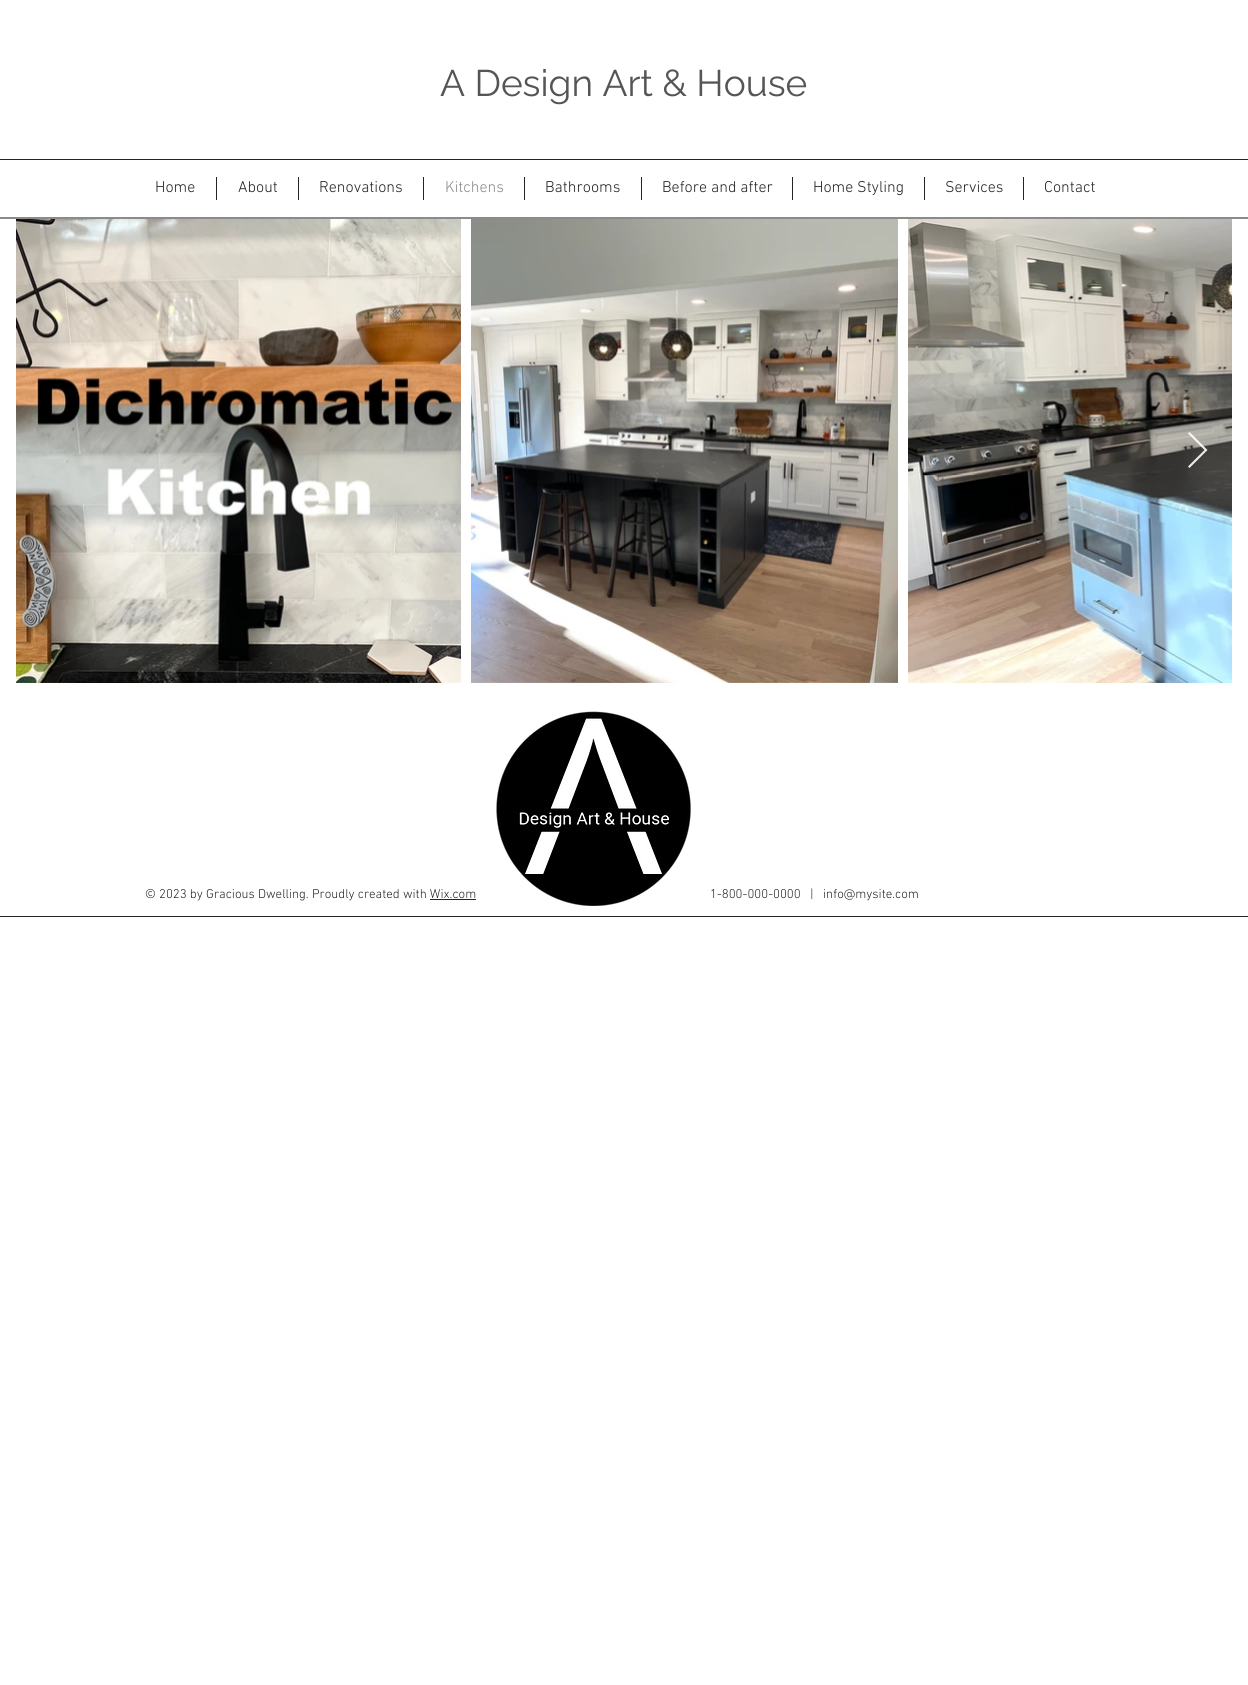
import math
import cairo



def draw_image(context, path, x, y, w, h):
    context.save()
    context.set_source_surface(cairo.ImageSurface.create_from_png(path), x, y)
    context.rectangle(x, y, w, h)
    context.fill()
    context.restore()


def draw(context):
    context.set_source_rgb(1, 1, 1)
    context.paint()
    context.set_source_rgb(36 / 255, 36 / 255, 36 / 255)
    context.rectangle(0, 159, 1248, 1)
    context.fill()
    context.rectangle(216, 177, 1, 23)
    context.fill()
    context.rectangle(298, 177, 1, 23)
    context.fill()
    context.rectangle(423, 177, 1, 23)
    context.fill()
    context.rectangle(524, 177, 1, 23)
    context.fill()
    context.rectangle(641, 177, 1, 23)
    context.fill()
    context.rectangle(792, 177, 1, 23)
    context.fill()
    context.rectangle(924, 177, 1, 23)
    context.fill()
    context.rectangle(1023, 177, 1, 23)
    context.fill()
    context.set_source_rgb(139 / 255, 139 / 255, 139 / 255)
    context.rectangle(0, 217, 1248, 2)
    context.fill()
    draw_image(context, "images/1.png", 16, 219, 445, 464)
    draw_image(context, "images/2.png", 471, 219, 427, 464)
    draw_image(context, "images/3.png", 908, 219, 324, 464)
    context.set_source_rgba(1, 1, 1, 0.9)
    context.new_path()
    context.move_to(1188, 433.5)
    context.line_to(1189.5, 432)
    context.line_to(1207.5, 450)
    context.line_to(1189.5, 468)
    context.line_to(1188, 466.5)
    context.line_to(1204.5, 450)
    context.close_path()
    context.fill()
    context.set_source_rgb(36 / 255, 36 / 255, 36 / 255)
    context.rectangle(430, 899, 46, 1)
    context.fill()
    draw_image(context, "images/4.png", 496, 711, 195, 195)
    context.rectangle(0, 916, 1248, 1)
    context.fill()
    context.select_font_face("Raleway")
    context.set_font_size(37)
    context.set_source_rgb(85 / 255, 85 / 255, 85 / 255)
    context.move_to(440, 96)
    context.show_text("A Design Art & House")
    context.select_font_face("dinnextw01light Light")
    context.set_font_size(16)
    context.set_source_rgb(36 / 255, 36 / 255, 36 / 255)
    context.move_to(155, 192)
    context.show_text("Home")
    context.move_to(238, 192)
    context.show_text("About")
    context.move_to(319, 192)
    context.show_text("Renovations")
    context.set_source_rgb(139 / 255, 139 / 255, 139 / 255)
    context.move_to(445, 192)
    context.show_text("Kitchens")
    context.set_source_rgb(36 / 255, 36 / 255, 36 / 255)
    context.move_to(545, 192)
    context.show_text("Bathrooms")
    context.move_to(662, 192)
    context.show_text("Before and after")
    context.move_to(813, 192)
    context.show_text("Home Styling")
    context.move_to(945, 192)
    context.show_text("Services")
    context.move_to(1044, 192)
    context.show_text("Contact")
    context.set_font_size(13)
    context.move_to(145, 898)
    context.show_text("© 2023 by Gracious Dwelling. Proudly created with Wix.com")
    context.move_to(710, 898)
    context.show_text("1-800-000-0000   |")
    context.move_to(823, 898)
    context.show_text("info@mysite.com")


surface = cairo.ImageSurface(cairo.Format.RGB24, 1248, 1685)
context = cairo.Context(surface)
options = cairo.FontOptions()
options.set_hint_metrics(cairo.HintMetrics.OFF)
options.set_hint_style(cairo.HintStyle.NONE)
context.set_font_options(options)
context.set_miter_limit(4)
draw(context)
surface.write_to_png("out.png")
